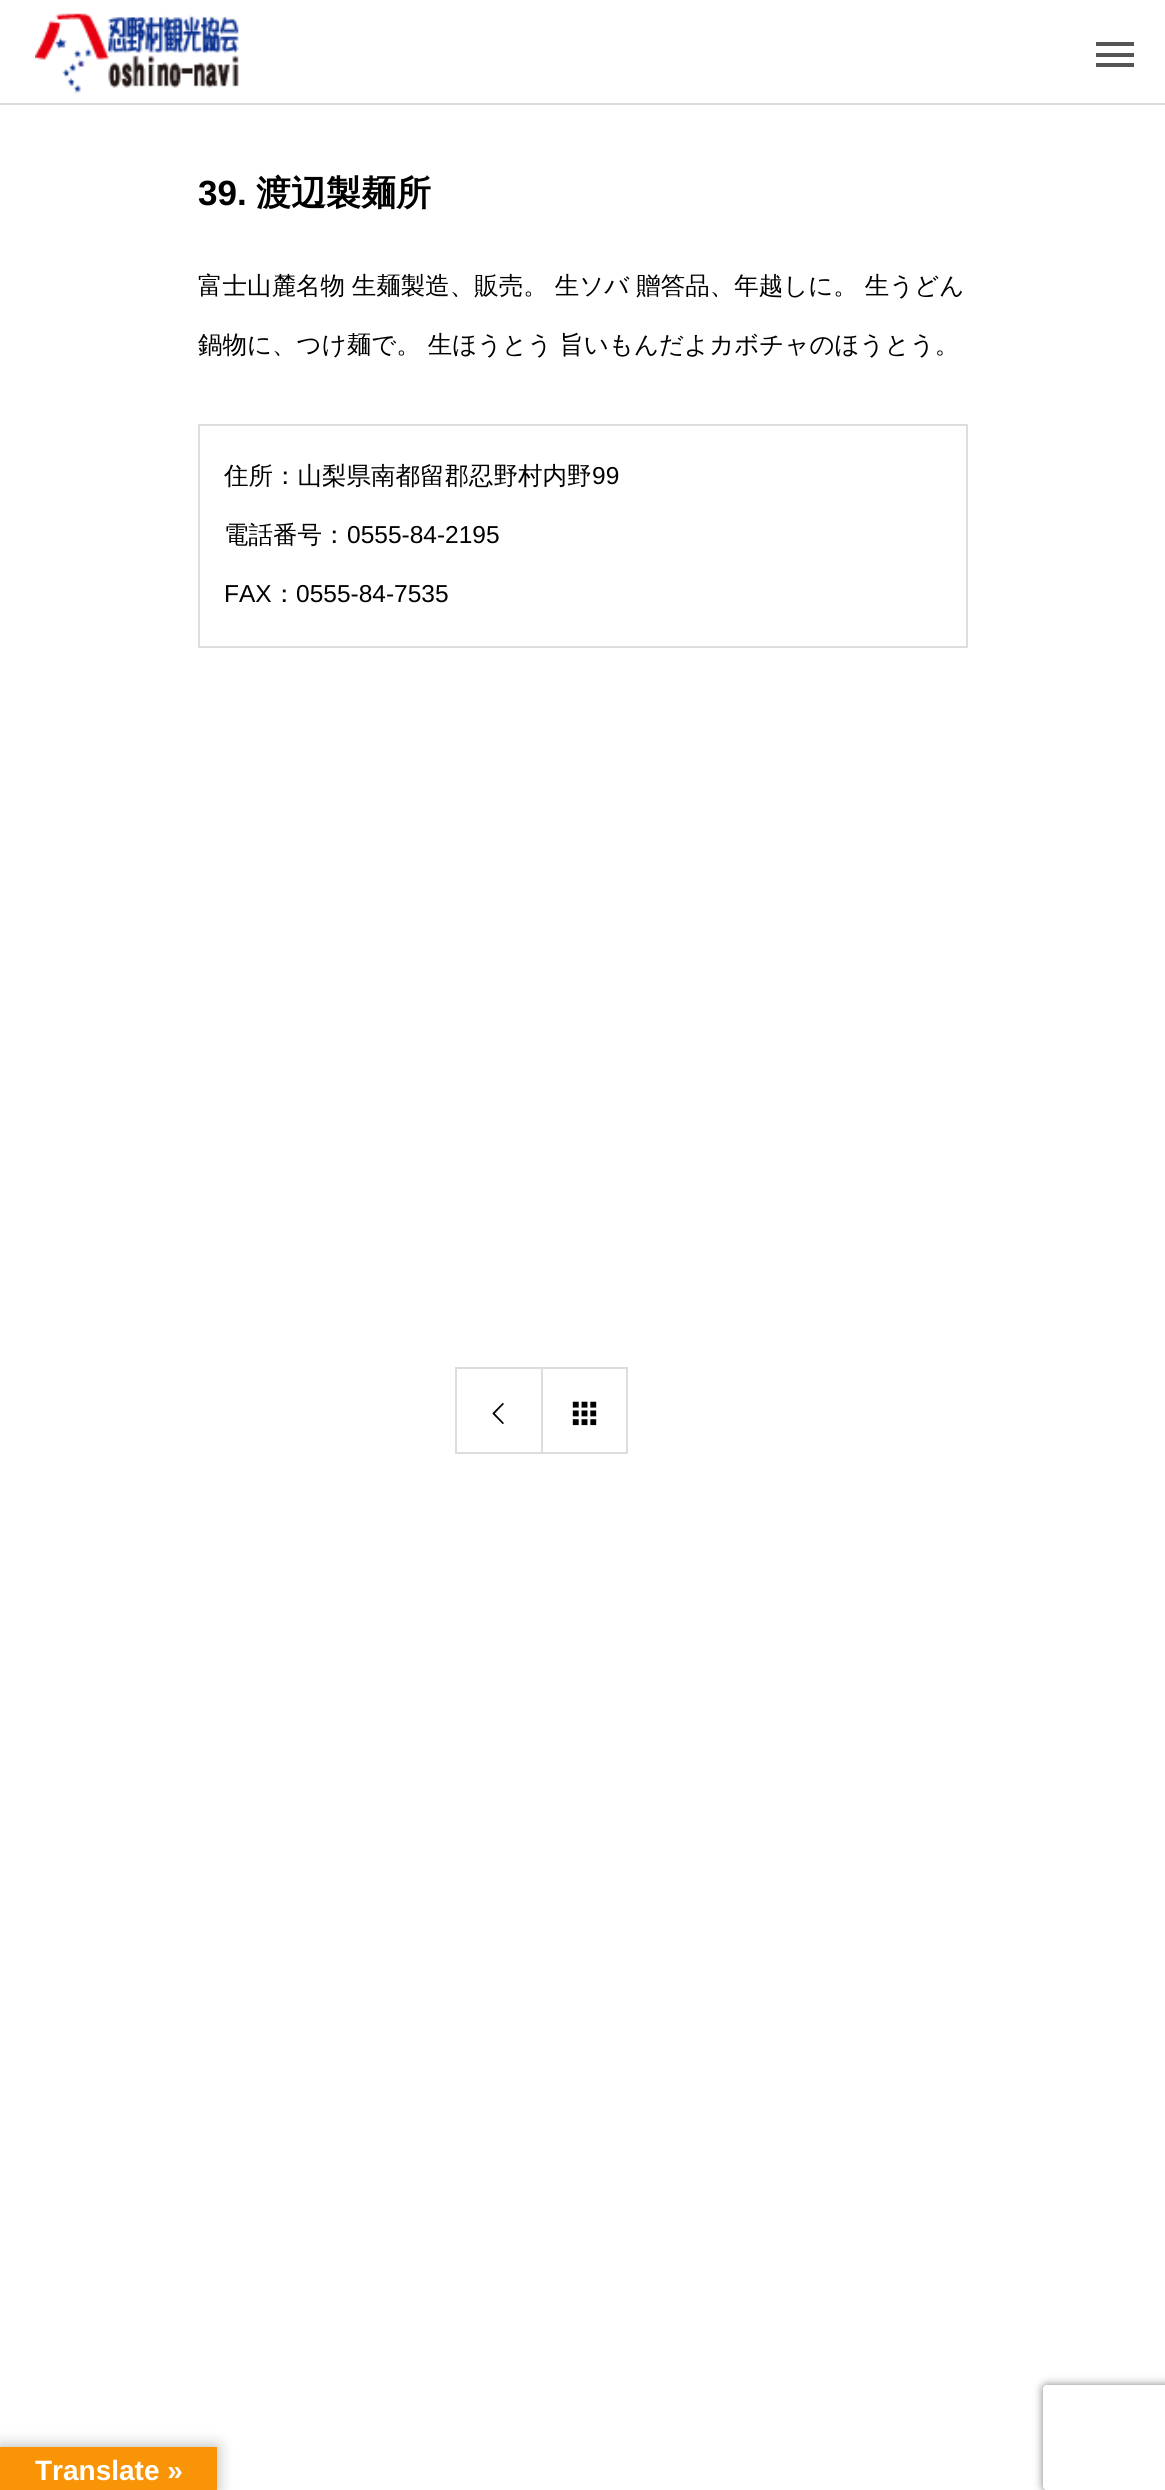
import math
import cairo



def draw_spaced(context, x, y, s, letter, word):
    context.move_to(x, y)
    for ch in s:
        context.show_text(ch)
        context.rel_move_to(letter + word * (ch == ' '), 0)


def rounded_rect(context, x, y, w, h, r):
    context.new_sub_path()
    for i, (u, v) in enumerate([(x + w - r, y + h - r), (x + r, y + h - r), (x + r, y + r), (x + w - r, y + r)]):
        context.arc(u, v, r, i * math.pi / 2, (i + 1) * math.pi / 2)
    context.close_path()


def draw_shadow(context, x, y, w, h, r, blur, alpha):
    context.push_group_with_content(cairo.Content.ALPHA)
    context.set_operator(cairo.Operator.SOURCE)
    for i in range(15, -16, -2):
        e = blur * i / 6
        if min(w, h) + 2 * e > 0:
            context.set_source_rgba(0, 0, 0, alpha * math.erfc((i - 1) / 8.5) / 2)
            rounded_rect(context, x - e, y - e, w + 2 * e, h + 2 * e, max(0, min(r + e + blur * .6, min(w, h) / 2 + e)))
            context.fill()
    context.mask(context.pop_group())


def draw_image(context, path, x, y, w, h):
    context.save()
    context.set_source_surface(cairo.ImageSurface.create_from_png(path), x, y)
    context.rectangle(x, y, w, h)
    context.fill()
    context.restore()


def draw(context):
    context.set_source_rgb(1, 1, 1)
    context.paint()
    context.set_source_rgb(221 / 255, 221 / 255, 221 / 255)
    context.rectangle(0, 103, 1165, 2)
    context.fill()
    draw_image(context, "images/1.png", 35, 13, 204, 81)
    context.set_source_rgb(85 / 255, 85 / 255, 85 / 255)
    context.rectangle(1096, 42, 38, 4)
    context.fill()
    context.rectangle(1096, 53, 38, 4)
    context.fill()
    context.rectangle(1096, 63, 38, 4)
    context.fill()
    context.rectangle(199, 425, 768, 222)
    context.set_source_rgb(221 / 255, 221 / 255, 221 / 255)
    context.stroke()
    context.rectangle(542, 1368, 85, 85)
    context.stroke()
    context.rectangle(456, 1368, 86, 85)
    context.stroke()
    draw_image(context, "images/2.png", 492, 1403, 12, 21)
    draw_image(context, "images/3.png", 572, 1401, 25, 25)
    context.set_source_rgb(0, 0, 0)
    draw_shadow(context, 0, 2447, 217, 43, 0, 8, 0.3)
    context.set_source_rgb(248 / 255, 148 / 255, 6 / 255)
    context.rectangle(0, 2447, 217, 43)
    context.fill()
    context.save()
    context.set_fill_rule(cairo.FillRule.EVEN_ODD)
    context.new_path()
    context.move_to(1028, 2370)
    context.line_to(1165, 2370)
    context.line_to(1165, 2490)
    context.line_to(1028, 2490)
    context.close_path()
    context.move_to(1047, 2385)
    context.line_to(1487, 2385)
    context.curve_to(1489, 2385, 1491, 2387, 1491, 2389)
    context.line_to(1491, 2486)
    context.curve_to(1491, 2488, 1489, 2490, 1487, 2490)
    context.line_to(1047, 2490)
    context.curve_to(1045, 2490, 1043, 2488, 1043, 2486)
    context.line_to(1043, 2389)
    context.curve_to(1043, 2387, 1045, 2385, 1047, 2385)
    context.close_path()
    context.clip()
    context.set_source_rgb(128 / 255, 128 / 255, 128 / 255)
    draw_shadow(context, 1043, 2385, 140, 105, 4, 4.5, 1)
    context.restore()
    context.select_font_face("Liberation Sans", cairo.FontSlant.NORMAL, cairo.FontWeight.BOLD)
    context.set_font_size(35)
    context.set_source_rgb(0, 0, 0)
    context.move_to(198, 205)
    context.show_text("39.")
    context.select_font_face("WenQuanYi Zen Hei", cairo.FontSlant.NORMAL, cairo.FontWeight.BOLD)
    context.move_to(256, 205)
    context.show_text("渡辺製麺所")
    context.select_font_face("WenQuanYi Zen Hei Medium")
    context.set_font_size(24.5)
    draw_spaced(context, 198, 294, "富士山麓名物 生麺製造、販売。 生ソバ 贈答品、年越しに。 生うどん", 0, -0.5)
    draw_spaced(context, 198, 353, "鍋物に、つけ麺で。 生ほうとう 旨いもんだよカボチャのほうとう。", 0, -0.5)
    context.move_to(224, 484)
    context.show_text("住所：山梨県南都留郡忍野村内野")
    context.select_font_face("Liberation Sans")
    context.move_to(592, 484)
    context.show_text("99")
    context.select_font_face("WenQuanYi Zen Hei Medium")
    context.move_to(224, 543)
    context.show_text("電話番号：")
    context.select_font_face("Liberation Sans")
    context.move_to(347, 543)
    context.show_text("0555-84-2195")
    context.move_to(224, 602)
    context.show_text("FAX")
    context.select_font_face("WenQuanYi Zen Hei Medium")
    context.move_to(272, 602)
    context.show_text("：")
    context.select_font_face("Liberation Sans")
    context.move_to(296, 602)
    context.show_text("0555-84-7535")
    context.select_font_face("Liberation Sans", cairo.FontSlant.NORMAL, cairo.FontWeight.BOLD)
    context.set_font_size(28)
    context.set_source_rgb(1, 1, 1)
    context.move_to(35, 2480)
    context.show_text("Translate »")


surface = cairo.ImageSurface(cairo.Format.RGB24, 1165, 2490)
context = cairo.Context(surface)
options = cairo.FontOptions()
options.set_hint_metrics(cairo.HintMetrics.OFF)
options.set_hint_style(cairo.HintStyle.NONE)
context.set_font_options(options)
context.set_miter_limit(4)
draw(context)
surface.write_to_png("out.png")
